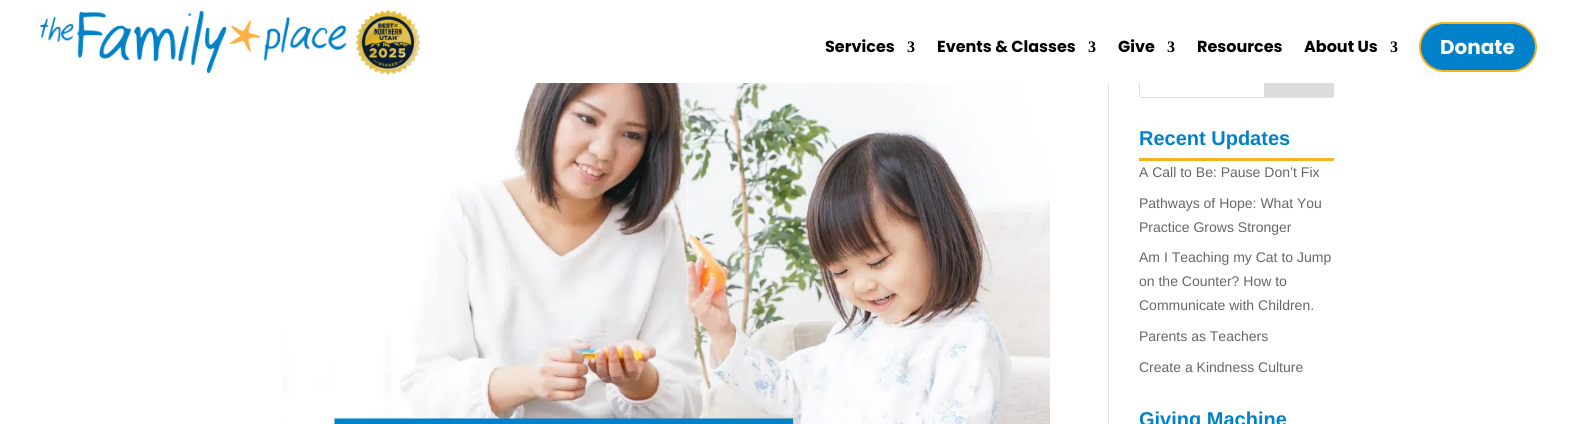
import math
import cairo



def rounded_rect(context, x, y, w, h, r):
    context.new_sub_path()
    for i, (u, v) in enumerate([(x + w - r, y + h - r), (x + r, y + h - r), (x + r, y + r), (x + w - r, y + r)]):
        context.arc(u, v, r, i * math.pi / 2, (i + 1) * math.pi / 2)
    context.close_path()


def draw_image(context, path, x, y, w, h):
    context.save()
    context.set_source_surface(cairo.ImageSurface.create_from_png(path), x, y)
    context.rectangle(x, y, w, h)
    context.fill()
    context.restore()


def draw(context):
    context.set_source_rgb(1, 1, 1)
    context.paint()
    rounded_rect(context, 1139.5, 58.5, 194, 39, 2.5)
    context.set_source_rgb(221 / 255, 221 / 255, 221 / 255)
    context.set_line_width(1)
    context.stroke()
    context.new_path()
    context.move_to(1264.5, 58.5)
    context.line_to(1331, 58.5)
    context.curve_to(1332.5, 58.5, 1333.5, 59.5, 1333.5, 61)
    context.line_to(1333.5, 95)
    context.curve_to(1333.5, 96.5, 1332.5, 97.5, 1331, 97.5)
    context.line_to(1264.5, 97.5)
    context.close_path()
    context.fill_preserve()
    context.stroke()
    context.set_source_rgb(1, 1, 1)
    context.rectangle(1139, 58, 195, 25)
    context.fill()
    draw_image(context, "images/1.png", 39, 11, 308, 63)
    draw_image(context, "images/2.png", 355, 10, 66, 65)
    context.set_source_rgb(0, 129 / 255, 201 / 255)
    rounded_rect(context, 1420, 23, 116, 48, 24)
    context.fill_preserve()
    context.set_source_rgb(246 / 255, 178 / 255, 33 / 255)
    context.set_line_width(2)
    context.stroke()
    context.set_source_rgb(226 / 255, 226 / 255, 226 / 255)
    context.rectangle(1108, 83, 1, 341)
    context.fill()
    draw_image(context, "images/3.png", 282, 83, 768, 341)
    context.set_source_rgb(246 / 255, 178 / 255, 33 / 255)
    context.rectangle(1139, 158, 195, 3)
    context.fill()
    context.select_font_face("Poppins", cairo.FontSlant.NORMAL, cairo.FontWeight.BOLD)
    context.set_font_size(16)
    context.set_source_rgb(0, 0, 0)
    context.move_to(825, 52)
    context.show_text("Services")
    context.select_font_face("Liberation Serif", cairo.FontSlant.NORMAL, cairo.FontWeight.BOLD)
    context.move_to(907, 52)
    context.show_text("3")
    context.select_font_face("Poppins", cairo.FontSlant.NORMAL, cairo.FontWeight.BOLD)
    context.move_to(937, 52)
    context.show_text("Events & Classes")
    context.select_font_face("Liberation Serif", cairo.FontSlant.NORMAL, cairo.FontWeight.BOLD)
    context.move_to(1088, 52)
    context.show_text("3")
    context.select_font_face("Poppins", cairo.FontSlant.NORMAL, cairo.FontWeight.BOLD)
    context.move_to(1118, 52)
    context.show_text("Give")
    context.select_font_face("Liberation Serif", cairo.FontSlant.NORMAL, cairo.FontWeight.BOLD)
    context.move_to(1167, 52)
    context.show_text("3")
    context.select_font_face("Poppins", cairo.FontSlant.NORMAL, cairo.FontWeight.BOLD)
    context.move_to(1197, 52)
    context.show_text("Resources")
    context.move_to(1304, 52)
    context.show_text("About Us")
    context.select_font_face("Liberation Serif", cairo.FontSlant.NORMAL, cairo.FontWeight.BOLD)
    context.move_to(1390, 52)
    context.show_text("3")
    context.select_font_face("Poppins", cairo.FontSlant.NORMAL, cairo.FontWeight.BOLD)
    context.set_font_size(20)
    context.set_source_rgb(1, 1, 1)
    context.move_to(1440, 54)
    context.show_text("Donate")
    context.select_font_face("Liberation Sans", cairo.FontSlant.NORMAL, cairo.FontWeight.BOLD)
    context.set_source_rgb(0, 129 / 255, 201 / 255)
    context.move_to(1139, 145)
    context.show_text("Recent Updates")
    context.select_font_face("Liberation Sans")
    context.set_font_size(14)
    context.set_source_rgb(102 / 255, 102 / 255, 102 / 255)
    context.move_to(1139, 177)
    context.show_text("A Call to Be: Pause Don’t Fix")
    context.move_to(1139, 208)
    context.show_text("Pathways of Hope: What You")
    context.move_to(1139, 232)
    context.show_text("Practice Grows Stronger")
    context.move_to(1139, 262)
    context.show_text("Am I Teaching my Cat to Jump")
    context.move_to(1139, 286)
    context.show_text("on the Counter? How to")
    context.move_to(1139, 310)
    context.show_text("Communicate with Children.")
    context.move_to(1139, 341)
    context.show_text("Parents as Teachers")
    context.move_to(1139, 372)
    context.show_text("Create a Kindness Culture")
    context.select_font_face("Liberation Sans", cairo.FontSlant.NORMAL, cairo.FontWeight.BOLD)
    context.set_font_size(20)
    context.set_source_rgb(0, 129 / 255, 201 / 255)
    context.move_to(1139, 426)
    context.show_text("Giving Machine")


surface = cairo.ImageSurface(cairo.Format.RGB24, 1589, 424)
context = cairo.Context(surface)
options = cairo.FontOptions()
options.set_hint_metrics(cairo.HintMetrics.OFF)
options.set_hint_style(cairo.HintStyle.NONE)
context.set_font_options(options)
context.set_miter_limit(4)
draw(context)
surface.write_to_png("out.png")
